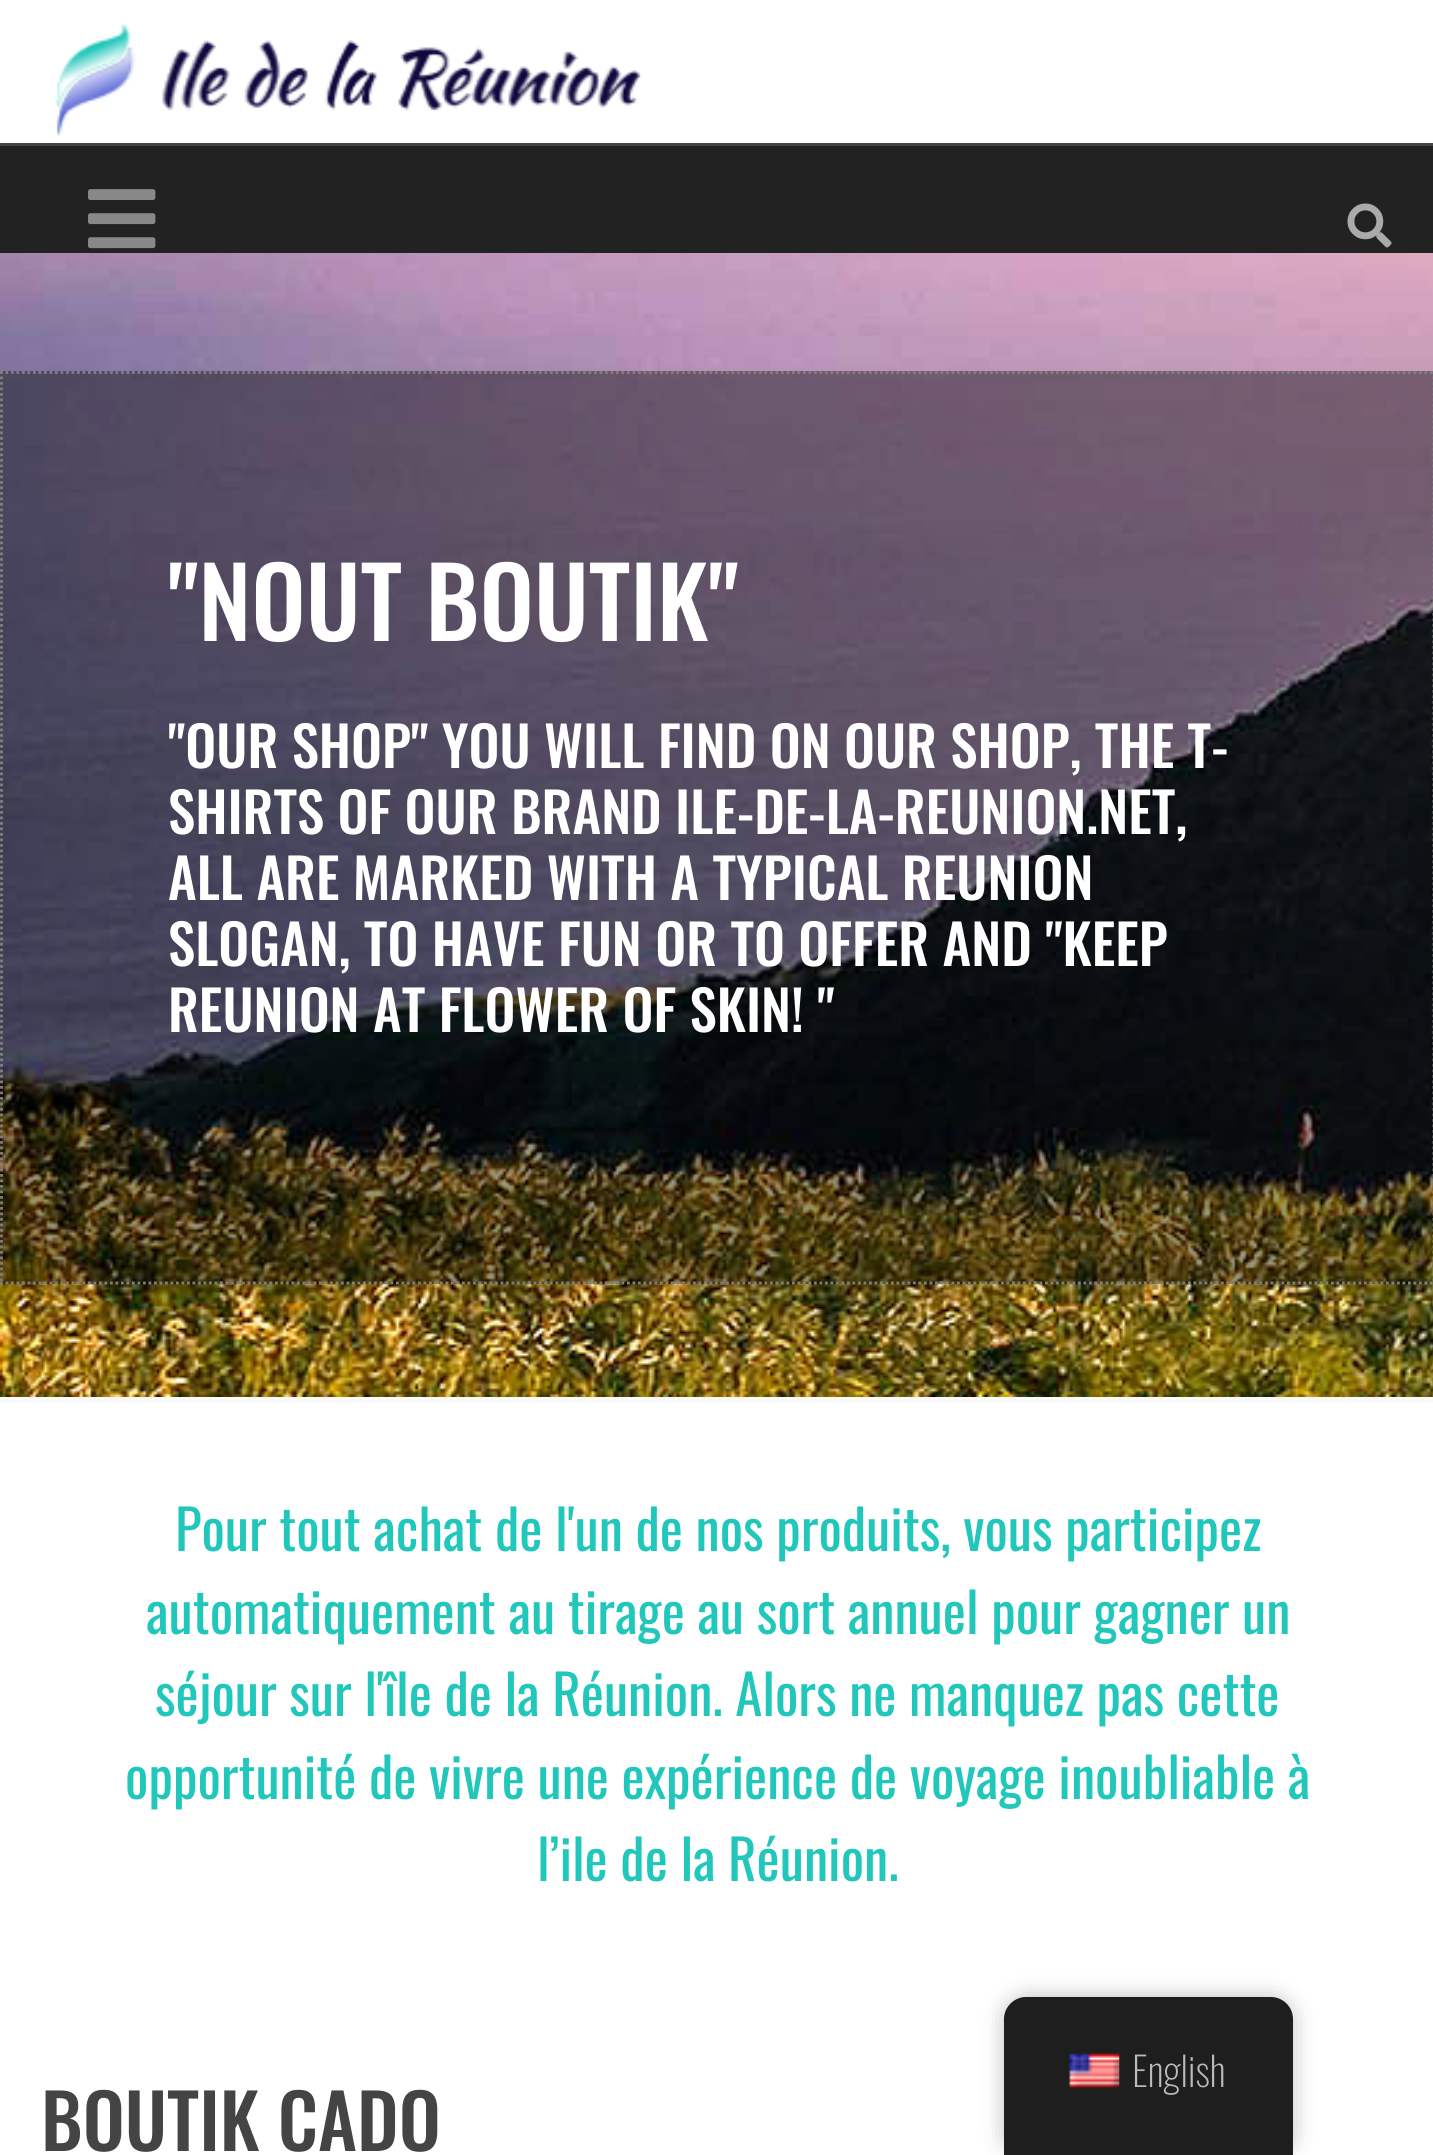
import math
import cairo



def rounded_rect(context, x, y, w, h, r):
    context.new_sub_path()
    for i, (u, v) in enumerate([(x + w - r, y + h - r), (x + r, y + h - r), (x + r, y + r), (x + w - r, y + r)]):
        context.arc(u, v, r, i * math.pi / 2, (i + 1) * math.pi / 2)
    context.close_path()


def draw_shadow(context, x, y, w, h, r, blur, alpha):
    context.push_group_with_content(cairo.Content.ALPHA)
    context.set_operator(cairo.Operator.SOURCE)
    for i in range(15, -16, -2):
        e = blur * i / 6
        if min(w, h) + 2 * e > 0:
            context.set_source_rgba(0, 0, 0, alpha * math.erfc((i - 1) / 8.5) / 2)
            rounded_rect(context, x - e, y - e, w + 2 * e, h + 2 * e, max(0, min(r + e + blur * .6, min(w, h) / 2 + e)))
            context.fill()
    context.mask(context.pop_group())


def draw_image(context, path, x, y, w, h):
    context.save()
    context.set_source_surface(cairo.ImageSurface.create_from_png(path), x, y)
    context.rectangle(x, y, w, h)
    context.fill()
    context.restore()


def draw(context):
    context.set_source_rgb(1, 1, 1)
    context.paint()
    draw_image(context, "images/1.png", 54, 24, 588, 112)
    context.set_source_rgb(34 / 255, 34 / 255, 34 / 255)
    context.rectangle(0, 146, 1433, 107)
    context.fill()
    context.set_source_rgb(68 / 255, 68 / 255, 68 / 255)
    context.rectangle(0, 143, 1433, 3)
    context.fill()
    draw_image(context, "images/2.png", 88, 189, 68, 60)
    draw_image(context, "images/3.png", 1347, 203, 45, 45)
    context.set_source_rgb(250 / 255, 250 / 255, 250 / 255)
    context.rectangle(0, 1397, 1433, 6)
    context.fill()
    draw_image(context, "images/4.png", 0, 253, 1433, 1144)
    context.set_source_rgba(0, 0, 0, 0.4)
    context.rectangle(0, 371, 1433, 913)
    context.fill()
    context.new_path()
    context.move_to(0, 372.5)
    context.line_to(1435.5, 372.5)
    context.set_source_rgb(128 / 255, 128 / 255, 128 / 255)
    context.set_line_width(2.8)
    context.set_dash([2.75, 2.75])
    context.stroke()
    context.new_path()
    context.move_to(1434, 371)
    context.line_to(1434, 1284)
    context.stroke()
    context.new_path()
    context.move_to(0, 1283)
    context.line_to(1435.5, 1283)
    context.stroke()
    context.new_path()
    context.move_to(1.5, 371)
    context.line_to(1.5, 1284)
    context.stroke()
    context.set_source_rgb(0, 0, 0)
    draw_shadow(context, 1004, 1997, 289, 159, 22, 11, 0.25)
    context.set_source_rgb(30 / 255, 30 / 255, 30 / 255)
    context.new_path()
    context.move_to(1026, 1997)
    context.line_to(1271, 1997)
    context.curve_to(1283, 1997, 1293, 2007, 1293, 2019)
    context.line_to(1293, 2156)
    context.line_to(1004, 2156)
    context.line_to(1004, 2019)
    context.curve_to(1004, 2007, 1014, 1997, 1026, 1997)
    context.close_path()
    context.fill()
    draw_image(context, "images/5.png", 1069, 2053, 51, 35)
    context.select_font_face("Oswald Medium")
    context.set_font_size(96.75)
    context.set_source_rgb(1, 1, 1)
    context.move_to(168, 641)
    context.show_text("\"NOUT BOUTIK\"")
    context.set_font_size(55)
    context.move_to(168, 768)
    context.show_text("\"OUR SHOP\" YOU WILL FIND ON OUR SHOP, THE T-")
    context.move_to(168, 834)
    context.show_text("SHIRTS OF OUR BRAND ILE-DE-LA-REUNION.NET,")
    context.move_to(168, 900)
    context.show_text("ALL ARE MARKED WITH A TYPICAL REUNION")
    context.move_to(168, 966)
    context.show_text("SLOGAN, TO HAVE FUN OR TO OFFER AND \"KEEP")
    context.move_to(168, 1032)
    context.show_text("REUNION AT FLOWER OF SKIN! \"")
    context.select_font_face("Oswald")
    context.set_source_rgb(33 / 255, 199 / 255, 187 / 255)
    context.move_to(175, 1551)
    context.show_text("Pour tout achat de l'un de nos produits, vous participez")
    context.move_to(146, 1634)
    context.show_text("automatiquement au tirage au sort annuel pour gagner un")
    context.move_to(155, 1716)
    context.show_text("séjour sur l'île de la Réunion. Alors ne manquez pas cette")
    context.move_to(125, 1799)
    context.show_text("opportunité de vivre une expérience de voyage inoubliable à")
    context.move_to(537, 1881)
    context.show_text("l’ile de la Réunion.")
    context.select_font_face("Oswald Medium")
    context.set_font_size(74.75)
    context.set_source_rgb(68 / 255, 68 / 255, 68 / 255)
    context.move_to(41, 2151)
    context.show_text("BOUTIK CADO")
    context.select_font_face("Oswald ExtraLight")
    context.set_font_size(40)
    context.set_source_rgb(187 / 255, 187 / 255, 187 / 255)
    context.move_to(1132, 2087)
    context.show_text("English")


surface = cairo.ImageSurface(cairo.Format.RGB24, 1433, 2155)
context = cairo.Context(surface)
options = cairo.FontOptions()
options.set_hint_metrics(cairo.HintMetrics.OFF)
options.set_hint_style(cairo.HintStyle.NONE)
context.set_font_options(options)
context.set_miter_limit(4)
draw(context)
surface.write_to_png("out.png")
